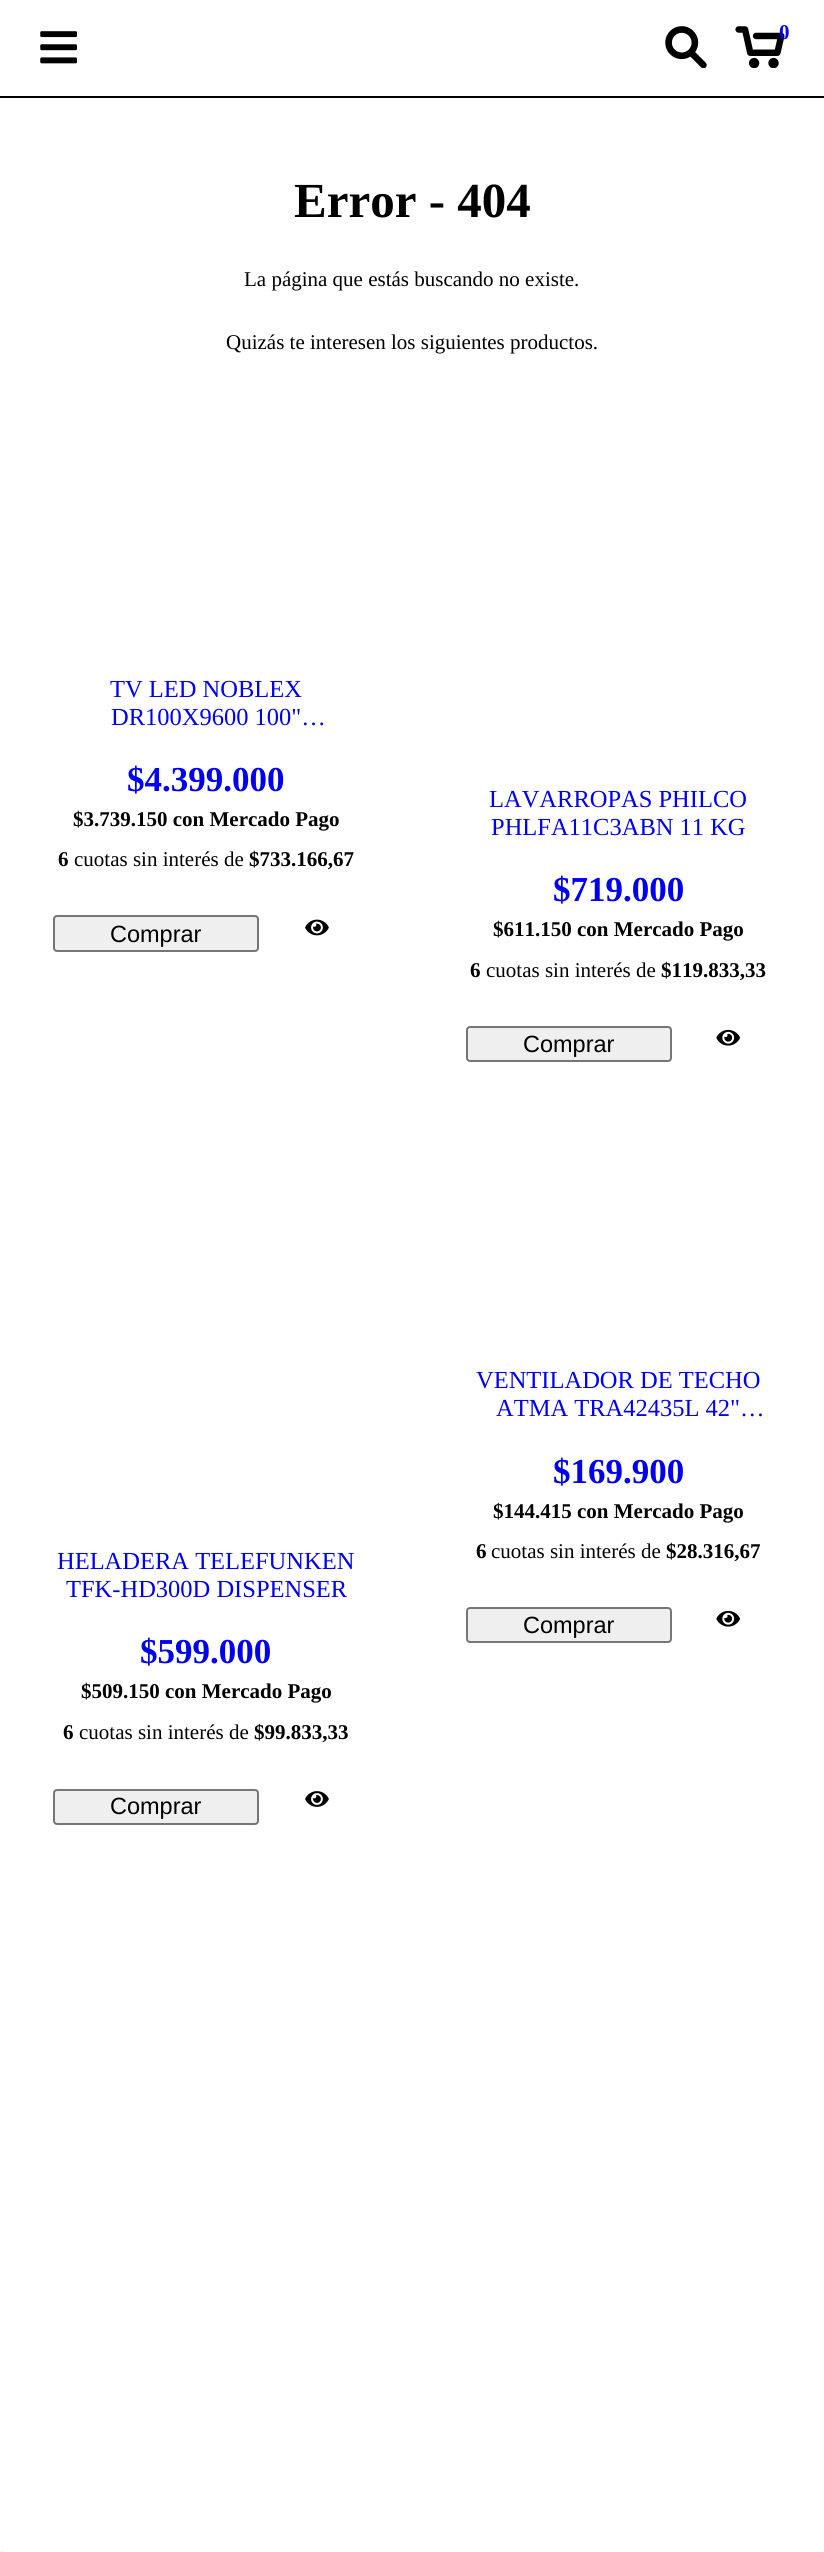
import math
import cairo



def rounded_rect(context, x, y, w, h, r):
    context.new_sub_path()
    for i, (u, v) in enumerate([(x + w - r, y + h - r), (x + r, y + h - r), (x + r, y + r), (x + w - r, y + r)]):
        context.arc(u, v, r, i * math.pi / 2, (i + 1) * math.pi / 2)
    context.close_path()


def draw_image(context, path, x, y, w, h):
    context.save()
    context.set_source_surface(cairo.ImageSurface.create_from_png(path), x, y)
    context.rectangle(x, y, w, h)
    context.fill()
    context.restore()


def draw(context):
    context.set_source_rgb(1, 1, 1)
    context.paint()
    draw_image(context, "images/1.png", 40, 31, 37, 33)
    draw_image(context, "images/2.png", 665, 26, 42, 42)
    draw_image(context, "images/3.png", 735, 26, 50, 42)
    context.set_source_rgb(0, 0, 0)
    context.rectangle(0, 96, 824, 2)
    context.fill()
    context.set_source_rgb(239 / 255, 239 / 255, 239 / 255)
    rounded_rect(context, 54, 916, 204, 35, 3)
    context.fill_preserve()
    context.set_source_rgb(118 / 255, 118 / 255, 118 / 255)
    context.stroke()
    draw_image(context, "images/4.png", 305, 919, 24, 17)
    context.set_source_rgb(239 / 255, 239 / 255, 239 / 255)
    rounded_rect(context, 467, 1027, 204, 34, 3)
    context.fill_preserve()
    context.set_source_rgb(118 / 255, 118 / 255, 118 / 255)
    context.stroke()
    draw_image(context, "images/5.png", 716, 1029, 24, 17)
    context.set_source_rgb(239 / 255, 239 / 255, 239 / 255)
    rounded_rect(context, 467, 1608, 204, 34, 3)
    context.fill_preserve()
    context.set_source_rgb(118 / 255, 118 / 255, 118 / 255)
    context.stroke()
    draw_image(context, "images/5.png", 716, 1610, 24, 17)
    context.set_source_rgb(239 / 255, 239 / 255, 239 / 255)
    rounded_rect(context, 54, 1790, 204, 34, 3)
    context.fill_preserve()
    context.set_source_rgb(118 / 255, 118 / 255, 118 / 255)
    context.stroke()
    draw_image(context, "images/6.png", 305, 1791, 24, 16)
    context.set_source_rgb(245 / 255, 245 / 255, 245 / 255)
    context.rectangle(0, 2550, 4, 2)
    context.fill()
    context.select_font_face("Liberation Serif", cairo.FontSlant.NORMAL, cairo.FontWeight.BOLD)
    context.set_font_size(21)
    context.set_source_rgb(0, 0, 238 / 255)
    context.move_to(779, 39)
    context.show_text("0")
    context.set_font_size(49)
    context.set_source_rgb(0, 0, 0)
    context.move_to(294, 217)
    context.show_text("Error - 404")
    context.select_font_face("Liberation Serif")
    context.set_font_size(21)
    context.move_to(244, 286)
    context.show_text("La página que estás buscando no existe.")
    context.move_to(226, 349)
    context.show_text("Quizás te interesen los siguientes productos.")
    context.set_font_size(24.5)
    context.set_source_rgb(0, 0, 238 / 255)
    context.move_to(110, 697)
    context.show_text("TV LED NOBLEX")
    context.move_to(111, 725)
    context.show_text("DR100X9600 100\"…")
    context.select_font_face("Liberation Serif", cairo.FontSlant.NORMAL, cairo.FontWeight.BOLD)
    context.set_font_size(35)
    context.move_to(127, 791)
    context.show_text("$4.399.000")
    context.set_font_size(21)
    context.set_source_rgb(0, 0, 0)
    context.move_to(73, 826)
    context.show_text("$3.739.150 con Mercado Pago")
    context.move_to(58, 866)
    context.show_text("6")
    context.select_font_face("Liberation Serif")
    context.move_to(74, 866)
    context.show_text("cuotas sin interés de")
    context.select_font_face("Liberation Serif", cairo.FontSlant.NORMAL, cairo.FontWeight.BOLD)
    context.move_to(249, 866)
    context.show_text("$733.166,67")
    context.select_font_face("Liberation Sans")
    context.set_font_size(23.5)
    context.move_to(110, 942)
    context.show_text("Comprar")
    context.select_font_face("Liberation Serif")
    context.set_font_size(24.5)
    context.set_source_rgb(0, 0, 238 / 255)
    context.move_to(489, 807)
    context.show_text("LAVARROPAS PHILCO")
    context.move_to(491, 835)
    context.show_text("PHLFA11C3ABN 11 KG")
    context.select_font_face("Liberation Serif", cairo.FontSlant.NORMAL, cairo.FontWeight.BOLD)
    context.set_font_size(35)
    context.move_to(553, 901)
    context.show_text("$719.000")
    context.set_font_size(21)
    context.set_source_rgb(0, 0, 0)
    context.move_to(493, 936)
    context.show_text("$611.150 con Mercado Pago")
    context.move_to(470, 977)
    context.show_text("6")
    context.select_font_face("Liberation Serif")
    context.move_to(486, 977)
    context.show_text("cuotas sin interés de")
    context.select_font_face("Liberation Serif", cairo.FontSlant.NORMAL, cairo.FontWeight.BOLD)
    context.move_to(661, 977)
    context.show_text("$119.833,33")
    context.select_font_face("Liberation Sans")
    context.set_font_size(23.5)
    context.move_to(523, 1052)
    context.show_text("Comprar")
    context.select_font_face("Liberation Serif")
    context.set_font_size(24.5)
    context.set_source_rgb(0, 0, 238 / 255)
    context.move_to(476, 1388)
    context.show_text("VENTILADOR DE TECHO")
    context.move_to(496, 1416)
    context.show_text("ATMA TRA42435L 42\"…")
    context.select_font_face("Liberation Serif", cairo.FontSlant.NORMAL, cairo.FontWeight.BOLD)
    context.set_font_size(35)
    context.move_to(553, 1483)
    context.show_text("$169.900")
    context.set_font_size(21)
    context.set_source_rgb(0, 0, 0)
    context.move_to(493, 1518)
    context.show_text("$144.415 con Mercado Pago")
    context.move_to(476, 1558)
    context.show_text("6")
    context.select_font_face("Liberation Serif")
    context.move_to(491, 1558)
    context.show_text("cuotas sin interés de")
    context.select_font_face("Liberation Serif", cairo.FontSlant.NORMAL, cairo.FontWeight.BOLD)
    context.move_to(666, 1558)
    context.show_text("$28.316,67")
    context.select_font_face("Liberation Sans")
    context.set_font_size(23.5)
    context.move_to(523, 1633)
    context.show_text("Comprar")
    context.select_font_face("Liberation Serif")
    context.set_font_size(24.5)
    context.set_source_rgb(0, 0, 238 / 255)
    context.move_to(57, 1569)
    context.show_text("HELADERA TELEFUNKEN")
    context.move_to(66, 1597)
    context.show_text("TFK-HD300D DISPENSER")
    context.select_font_face("Liberation Serif", cairo.FontSlant.NORMAL, cairo.FontWeight.BOLD)
    context.set_font_size(35)
    context.move_to(140, 1663)
    context.show_text("$599.000")
    context.set_font_size(21)
    context.set_source_rgb(0, 0, 0)
    context.move_to(81, 1698)
    context.show_text("$509.150 con Mercado Pago")
    context.move_to(63, 1739)
    context.show_text("6")
    context.select_font_face("Liberation Serif")
    context.move_to(79, 1739)
    context.show_text("cuotas sin interés de")
    context.select_font_face("Liberation Serif", cairo.FontSlant.NORMAL, cairo.FontWeight.BOLD)
    context.move_to(254, 1739)
    context.show_text("$99.833,33")
    context.select_font_face("Liberation Sans")
    context.set_font_size(23.5)
    context.move_to(110, 1814)
    context.show_text("Comprar")


surface = cairo.ImageSurface(cairo.Format.RGB24, 824, 2552)
context = cairo.Context(surface)
options = cairo.FontOptions()
options.set_hint_metrics(cairo.HintMetrics.OFF)
options.set_hint_style(cairo.HintStyle.NONE)
context.set_font_options(options)
context.set_miter_limit(4)
draw(context)
surface.write_to_png("out.png")
